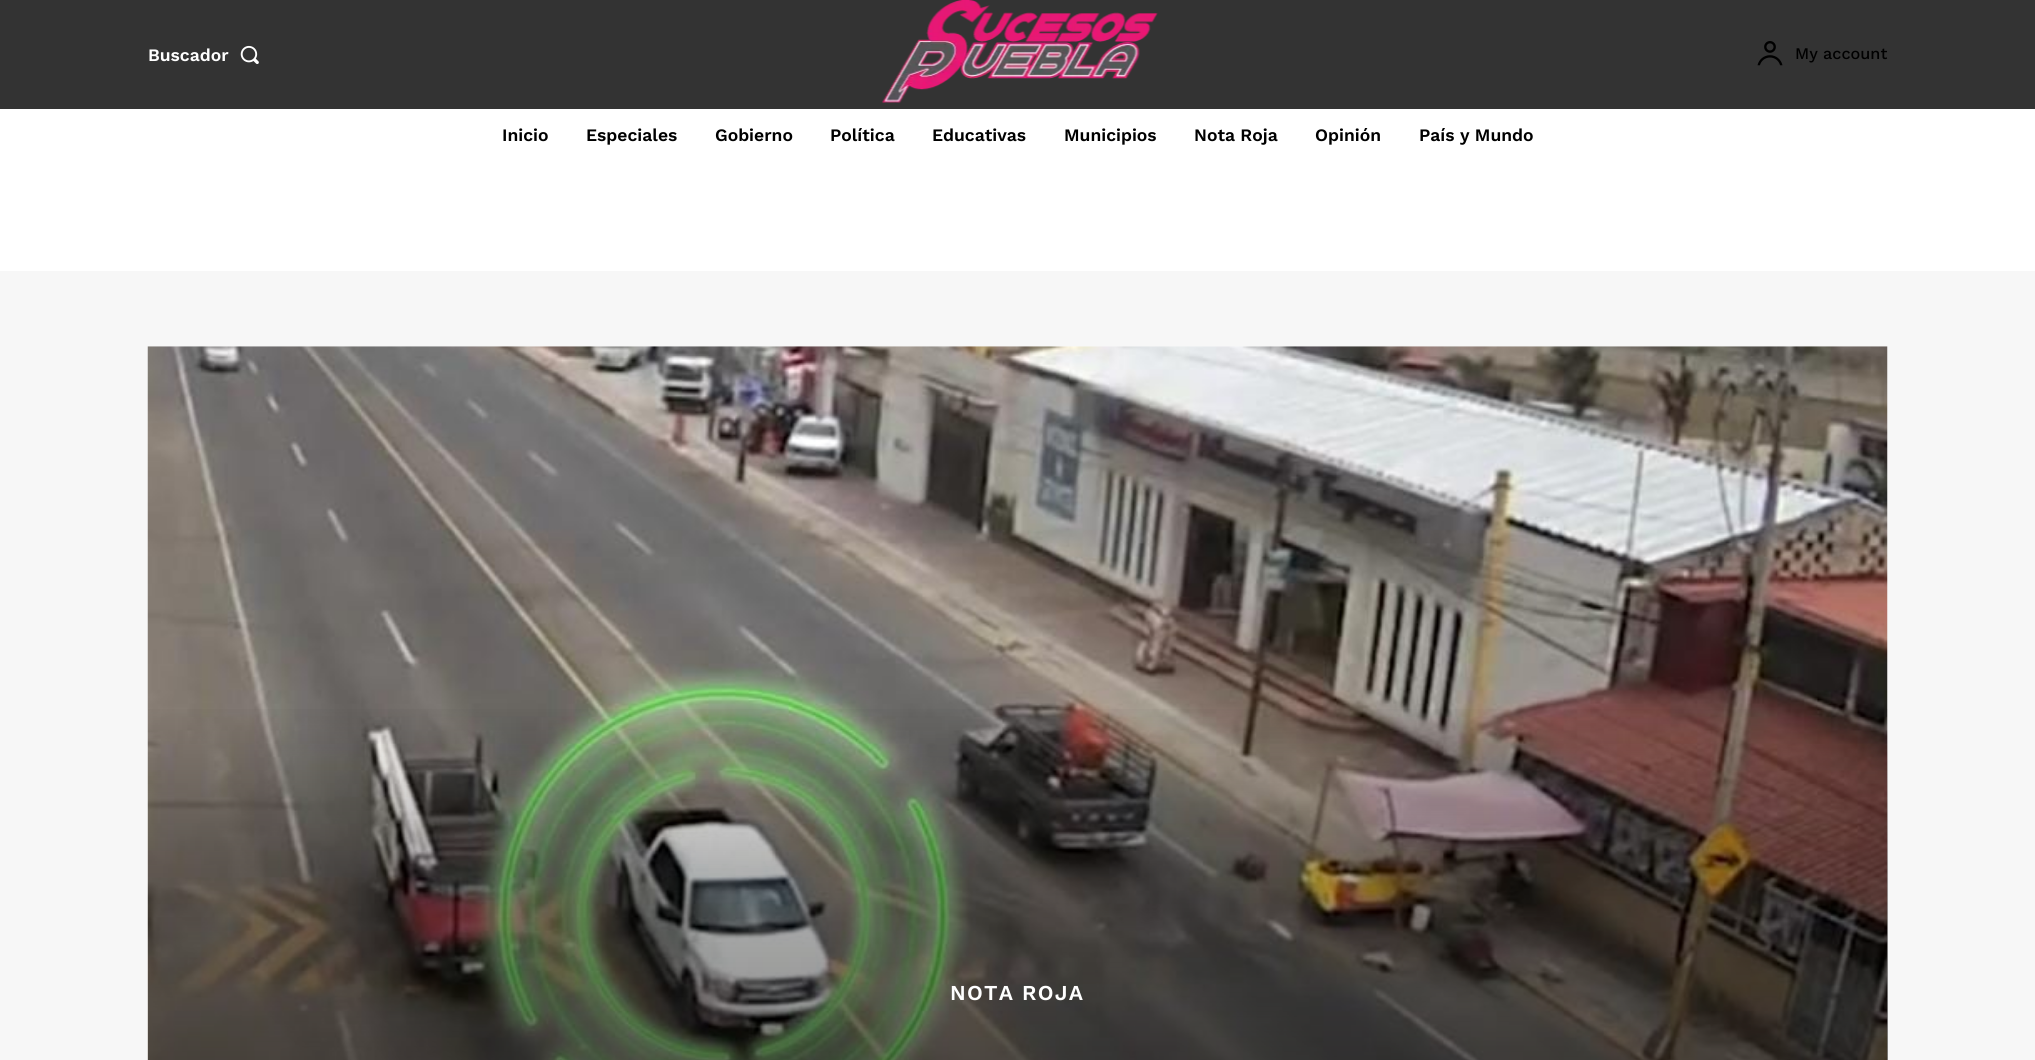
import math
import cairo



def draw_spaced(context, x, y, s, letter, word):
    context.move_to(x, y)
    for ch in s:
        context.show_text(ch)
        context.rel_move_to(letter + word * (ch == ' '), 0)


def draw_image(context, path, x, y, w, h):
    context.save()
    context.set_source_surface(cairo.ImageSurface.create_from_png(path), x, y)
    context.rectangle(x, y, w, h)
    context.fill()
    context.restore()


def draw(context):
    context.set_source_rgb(1, 1, 1)
    context.paint()
    context.set_source_rgb(51 / 255, 51 / 255, 51 / 255)
    context.rectangle(0, 0, 2035, 109)
    context.fill()
    draw_image(context, "images/1.png", 240, 45, 19, 19)
    draw_image(context, "images/2.png", 882, 0, 276, 103)
    draw_image(context, "images/3.png", 1757, 41, 26, 25)
    context.set_source_rgb(247 / 255, 247 / 255, 247 / 255)
    context.rectangle(0, 271, 2035, 789)
    context.fill()
    draw_image(context, "images/4.png", 147, 346, 1741, 714)
    gradient = cairo.LinearGradient(1018, 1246, 1018, 346)
    gradient.add_color_stop_rgba(0, 0, 0, 0, 0.6)
    gradient.add_color_stop_rgba(0.42, 0, 0, 0, 0.3)
    gradient.add_color_stop_rgba(0.61, 0, 0, 0, 0)
    gradient.add_color_stop_rgba(1, 0, 0, 0, 0)
    context.set_source(gradient)
    context.rectangle(148, 709, 1740, 351)
    context.fill()
    context.select_font_face("Work Sans SemiBold")
    context.set_font_size(17.5)
    context.set_source_rgb(1, 1, 1)
    context.move_to(148, 61)
    context.show_text("Buscador")
    context.select_font_face("Work Sans Medium")
    context.set_font_size(16.25)
    context.set_source_rgb(0, 0, 0)
    context.move_to(1795, 59)
    context.show_text("My account")
    context.select_font_face("Work Sans SemiBold")
    context.set_font_size(17.5)
    context.move_to(502, 141)
    context.show_text("Inicio")
    context.move_to(586, 141)
    context.show_text("Especiales")
    context.move_to(715, 141)
    context.show_text("Gobierno")
    context.move_to(830, 141)
    context.show_text("Política")
    context.move_to(932, 141)
    context.show_text("Educativas")
    context.move_to(1064, 141)
    context.show_text("Municipios")
    context.move_to(1194, 141)
    context.show_text("Nota Roja")
    context.move_to(1315, 141)
    context.show_text("Opinión")
    context.move_to(1419, 141)
    context.show_text("País y Mundo")
    context.set_font_size(21.25)
    context.set_source_rgb(1, 1, 1)
    draw_spaced(context, 950, 1000, "NOTA ROJA", 1.25, 0)


surface = cairo.ImageSurface(cairo.Format.RGB24, 2035, 1060)
context = cairo.Context(surface)
options = cairo.FontOptions()
options.set_hint_metrics(cairo.HintMetrics.OFF)
options.set_hint_style(cairo.HintStyle.NONE)
context.set_font_options(options)
context.set_miter_limit(4)
draw(context)
surface.write_to_png("out.png")
